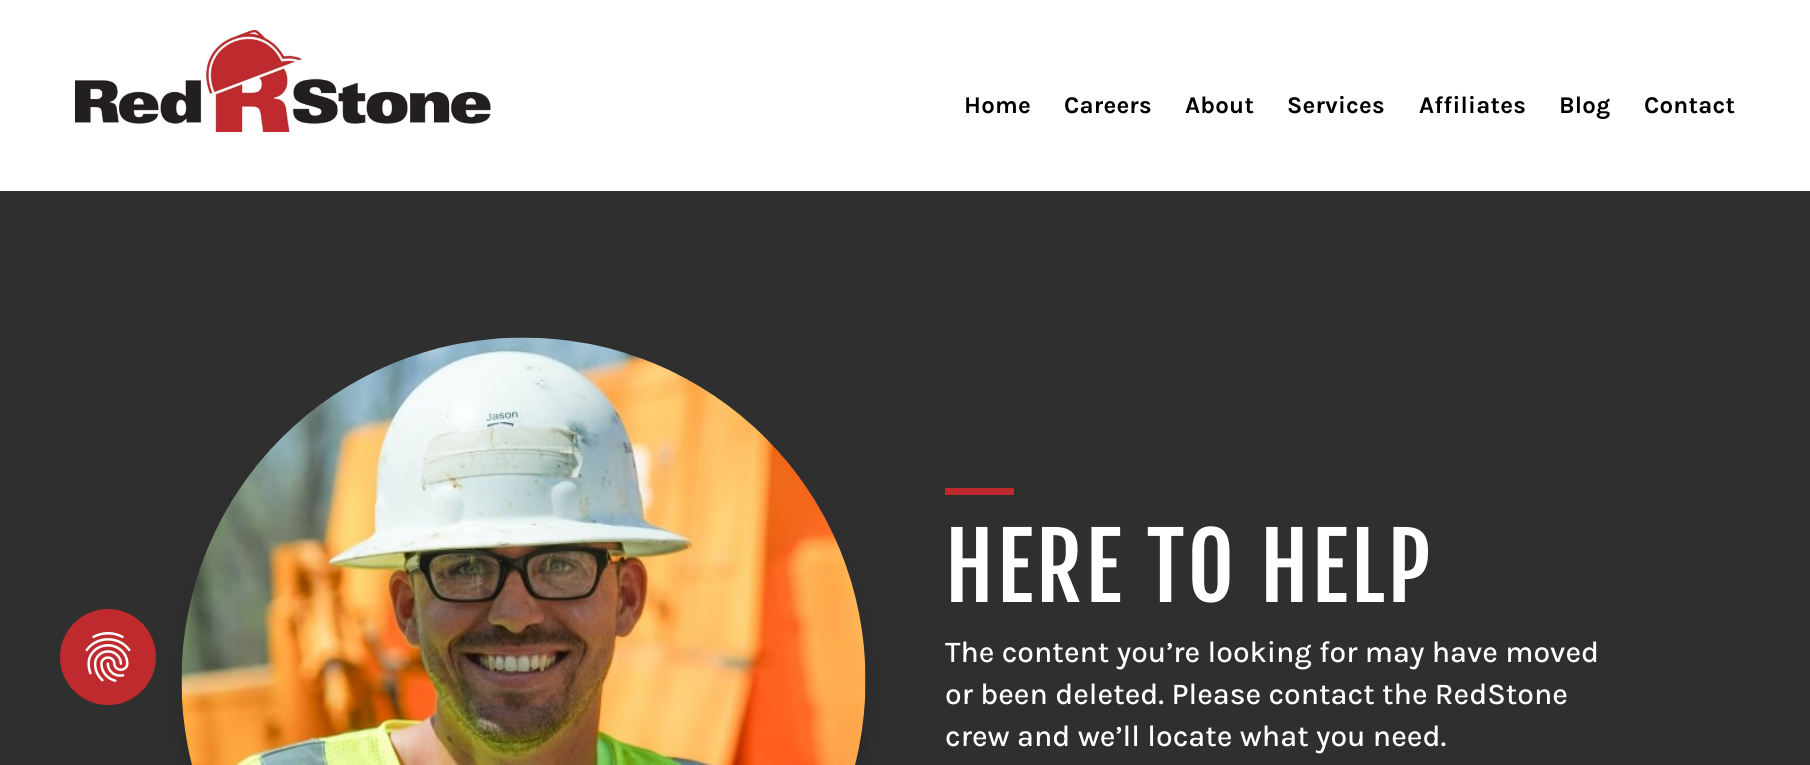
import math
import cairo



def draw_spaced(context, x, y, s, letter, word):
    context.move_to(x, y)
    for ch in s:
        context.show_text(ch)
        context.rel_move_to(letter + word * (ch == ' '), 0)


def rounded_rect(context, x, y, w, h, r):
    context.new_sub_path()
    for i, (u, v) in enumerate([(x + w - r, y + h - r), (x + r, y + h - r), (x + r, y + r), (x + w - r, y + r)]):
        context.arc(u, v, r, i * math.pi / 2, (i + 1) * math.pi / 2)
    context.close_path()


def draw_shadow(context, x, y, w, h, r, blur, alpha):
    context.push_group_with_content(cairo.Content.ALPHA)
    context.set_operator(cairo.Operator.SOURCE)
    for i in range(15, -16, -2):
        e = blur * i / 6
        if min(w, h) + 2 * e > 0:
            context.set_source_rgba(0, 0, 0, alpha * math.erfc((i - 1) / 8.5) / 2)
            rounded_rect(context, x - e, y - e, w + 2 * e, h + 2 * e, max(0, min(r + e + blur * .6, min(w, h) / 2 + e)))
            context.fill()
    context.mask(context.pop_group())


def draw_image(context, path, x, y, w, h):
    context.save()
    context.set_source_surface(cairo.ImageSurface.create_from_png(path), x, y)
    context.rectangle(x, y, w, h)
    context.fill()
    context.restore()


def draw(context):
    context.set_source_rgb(47 / 255, 47 / 255, 47 / 255)
    context.paint()
    context.set_source_rgb(0, 0, 0)
    draw_shadow(context, 191, 365, 666, 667, 333, 13.5, 0.3)
    context.set_source_rgb(191 / 255, 42 / 255, 46 / 255)
    context.arc(108, 657, 48, 0, 2 * math.pi)
    context.fill()
    draw_image(context, "images/1.png", 85, 632, 46, 50)
    context.set_source_rgb(1, 1, 1)
    context.rectangle(0, 0, 1810, 191)
    context.fill()
    draw_image(context, "images/2.png", 75, 30, 416, 102)
    draw_image(context, "images/3.png", 181, 337, 685, 428)
    context.set_source_rgb(191 / 255, 42 / 255, 47 / 255)
    context.rectangle(945, 488, 69, 7)
    context.fill()
    context.select_font_face("Karla", cairo.FontSlant.NORMAL, cairo.FontWeight.BOLD)
    context.set_font_size(24)
    context.set_source_rgb(0, 0, 0)
    draw_spaced(context, 964, 113, "Home", 0.25, 0)
    draw_spaced(context, 1064, 113, "Careers", 0.25, 0)
    draw_spaced(context, 1185, 113, "About", 0.25, 0)
    draw_spaced(context, 1287, 113, "Services", 0.25, 0)
    draw_spaced(context, 1419, 113, "Affiliates", 0.25, 0)
    draw_spaced(context, 1559, 113, "Blog", 0.25, 0)
    draw_spaced(context, 1644, 113, "Contact", 0.25, 0)
    context.select_font_face("Fjalla One")
    context.set_font_size(90)
    context.set_source_rgb(1, 1, 1)
    draw_spaced(context, 945, 602, "HERE TO HELP", 3, 0)
    context.select_font_face("Karla Medium")
    context.set_font_size(30)
    context.move_to(945, 662)
    context.show_text("The content you’re looking for may have moved")
    context.move_to(945, 704)
    context.show_text("or been deleted. Please contact the RedStone")
    context.move_to(945, 746)
    context.show_text("crew and we’ll locate what you need.")


surface = cairo.ImageSurface(cairo.Format.RGB24, 1810, 765)
context = cairo.Context(surface)
options = cairo.FontOptions()
options.set_hint_metrics(cairo.HintMetrics.OFF)
options.set_hint_style(cairo.HintStyle.NONE)
context.set_font_options(options)
context.set_miter_limit(4)
draw(context)
surface.write_to_png("out.png")
